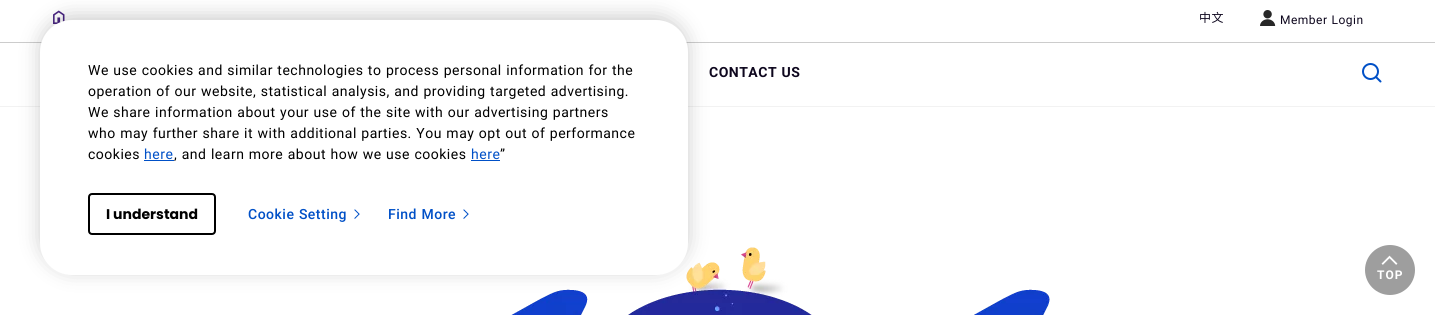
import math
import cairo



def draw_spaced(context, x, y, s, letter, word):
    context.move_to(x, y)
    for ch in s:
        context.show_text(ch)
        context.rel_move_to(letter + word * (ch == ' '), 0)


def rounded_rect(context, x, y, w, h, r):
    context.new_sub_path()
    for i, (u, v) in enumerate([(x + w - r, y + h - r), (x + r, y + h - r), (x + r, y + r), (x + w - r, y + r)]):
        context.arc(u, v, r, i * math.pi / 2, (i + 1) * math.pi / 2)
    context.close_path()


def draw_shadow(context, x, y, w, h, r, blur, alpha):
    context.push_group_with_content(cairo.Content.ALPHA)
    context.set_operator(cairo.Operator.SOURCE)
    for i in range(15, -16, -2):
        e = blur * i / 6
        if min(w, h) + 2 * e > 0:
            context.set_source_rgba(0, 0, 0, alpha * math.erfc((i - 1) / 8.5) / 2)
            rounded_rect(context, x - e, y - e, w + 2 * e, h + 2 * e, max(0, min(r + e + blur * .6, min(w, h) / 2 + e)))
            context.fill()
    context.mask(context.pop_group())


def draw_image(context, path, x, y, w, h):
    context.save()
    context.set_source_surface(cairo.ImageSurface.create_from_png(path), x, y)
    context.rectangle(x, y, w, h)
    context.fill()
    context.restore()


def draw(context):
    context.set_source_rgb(1, 1, 1)
    context.paint()
    context.set_source_rgb(204 / 255, 204 / 255, 204 / 255)
    context.rectangle(0, 42, 1435, 1)
    context.fill()
    draw_image(context, "images/1.png", 53, 10, 12, 14)
    draw_image(context, "images/2.png", 1260, 10, 16, 16)
    context.set_source_rgb(242 / 255, 242 / 255, 242 / 255)
    context.rectangle(0, 106, 1435, 1)
    context.fill()
    context.arc(1370.5, 71.5, 7.5, 0, 2 * math.pi)
    context.set_source_rgb(0, 80 / 255, 199 / 255)
    context.stroke()
    context.new_path()
    context.move_to(1376.5, 77.5)
    context.line_to(1380.5, 81.5)
    context.set_line_cap(cairo.LineCap.ROUND)
    context.set_line_join(cairo.LineJoin.ROUND)
    context.stroke()
    draw_image(context, "images/4.png", 511, 247, 539, 68)
    context.set_source_rgb(0, 0, 0)
    draw_shadow(context, 40, 16, 648, 255, 32, 10, 0.2)
    context.set_source_rgb(1, 1, 1)
    rounded_rect(context, 40, 20, 648, 255, 32)
    context.fill()
    context.set_source_rgb(0, 80 / 255, 199 / 255)
    context.rectangle(144, 160, 30, 1)
    context.fill()
    context.rectangle(471, 160, 29, 1)
    context.fill()
    rounded_rect(context, 89, 194, 126, 40, 3)
    context.set_source_rgb(0, 0, 0)
    context.set_line_cap(cairo.LineCap.BUTT)
    context.set_line_join(cairo.LineJoin.MITER)
    context.stroke()
    draw_image(context, "images/3.png", 354, 209, 6, 10)
    draw_image(context, "images/3.png", 463, 209, 6, 10)
    context.set_source_rgb(158 / 255, 158 / 255, 158 / 255)
    context.arc(1390, 270, 25, 0, 2 * math.pi)
    context.fill()
    draw_image(context, "images/5.png", 1381, 255, 17, 10)
    context.select_font_face("Noto Sans TC")
    context.set_font_size(12)
    context.set_source_rgb(14 / 255, 7 / 255, 30 / 255)
    draw_spaced(context, 1199, 22, "中文", 0.5, 0)
    context.select_font_face("Roboto")
    draw_spaced(context, 1280, 24, "Member Login", 0.5, 0.5)
    context.select_font_face("Roboto", cairo.FontSlant.NORMAL, cairo.FontWeight.BOLD)
    context.set_font_size(14)
    draw_spaced(context, 709, 77, "CONTACT US", 0.5, 0.5)
    context.select_font_face("Roboto")
    context.set_source_rgb(0, 0, 0)
    draw_spaced(context, 88, 75, "We use cookies and similar technologies to process personal information for the", 0.5, 0.5)
    draw_spaced(context, 88, 96, "operation of our website, statistical analysis, and providing targeted advertising.", 0.5, 0.5)
    draw_spaced(context, 88, 117, "We share information about your use of the site with our advertising partners", 0.5, 0.5)
    draw_spaced(context, 88, 138, "who may further share it with additional parties. You may opt out of performance", 0.5, 0.5)
    draw_spaced(context, 88, 159, "cookies", 0.5, 0)
    context.set_source_rgb(0, 80 / 255, 199 / 255)
    draw_spaced(context, 144, 159, "here", 0.5, 0)
    context.set_source_rgb(0, 0, 0)
    draw_spaced(context, 174, 159, ", and learn more about how we use cookies", 0.5, 0.5)
    context.set_source_rgb(0, 80 / 255, 199 / 255)
    draw_spaced(context, 471, 159, "here", 0.5, 0)
    context.set_source_rgb(0, 0, 0)
    draw_spaced(context, 500, 159, "”", 0.5, 0)
    context.select_font_face("Poppins", cairo.FontSlant.NORMAL, cairo.FontWeight.BOLD)
    context.move_to(106, 219)
    context.show_text("I understand")
    context.select_font_face("Roboto Medium")
    context.set_source_rgb(0, 80 / 255, 199 / 255)
    draw_spaced(context, 248, 219, "Cookie Setting", 0.5, 0.5)
    draw_spaced(context, 388, 219, "Find More", 0.5, 0.5)
    context.select_font_face("Roboto", cairo.FontSlant.NORMAL, cairo.FontWeight.BOLD)
    context.set_font_size(12)
    context.set_source_rgb(1, 1, 1)
    draw_spaced(context, 1377, 279, "TOP", 1, 0)


surface = cairo.ImageSurface(cairo.Format.RGB24, 1435, 315)
context = cairo.Context(surface)
options = cairo.FontOptions()
options.set_hint_metrics(cairo.HintMetrics.OFF)
options.set_hint_style(cairo.HintStyle.NONE)
context.set_font_options(options)
context.set_miter_limit(4)
draw(context)
surface.write_to_png("out.png")
